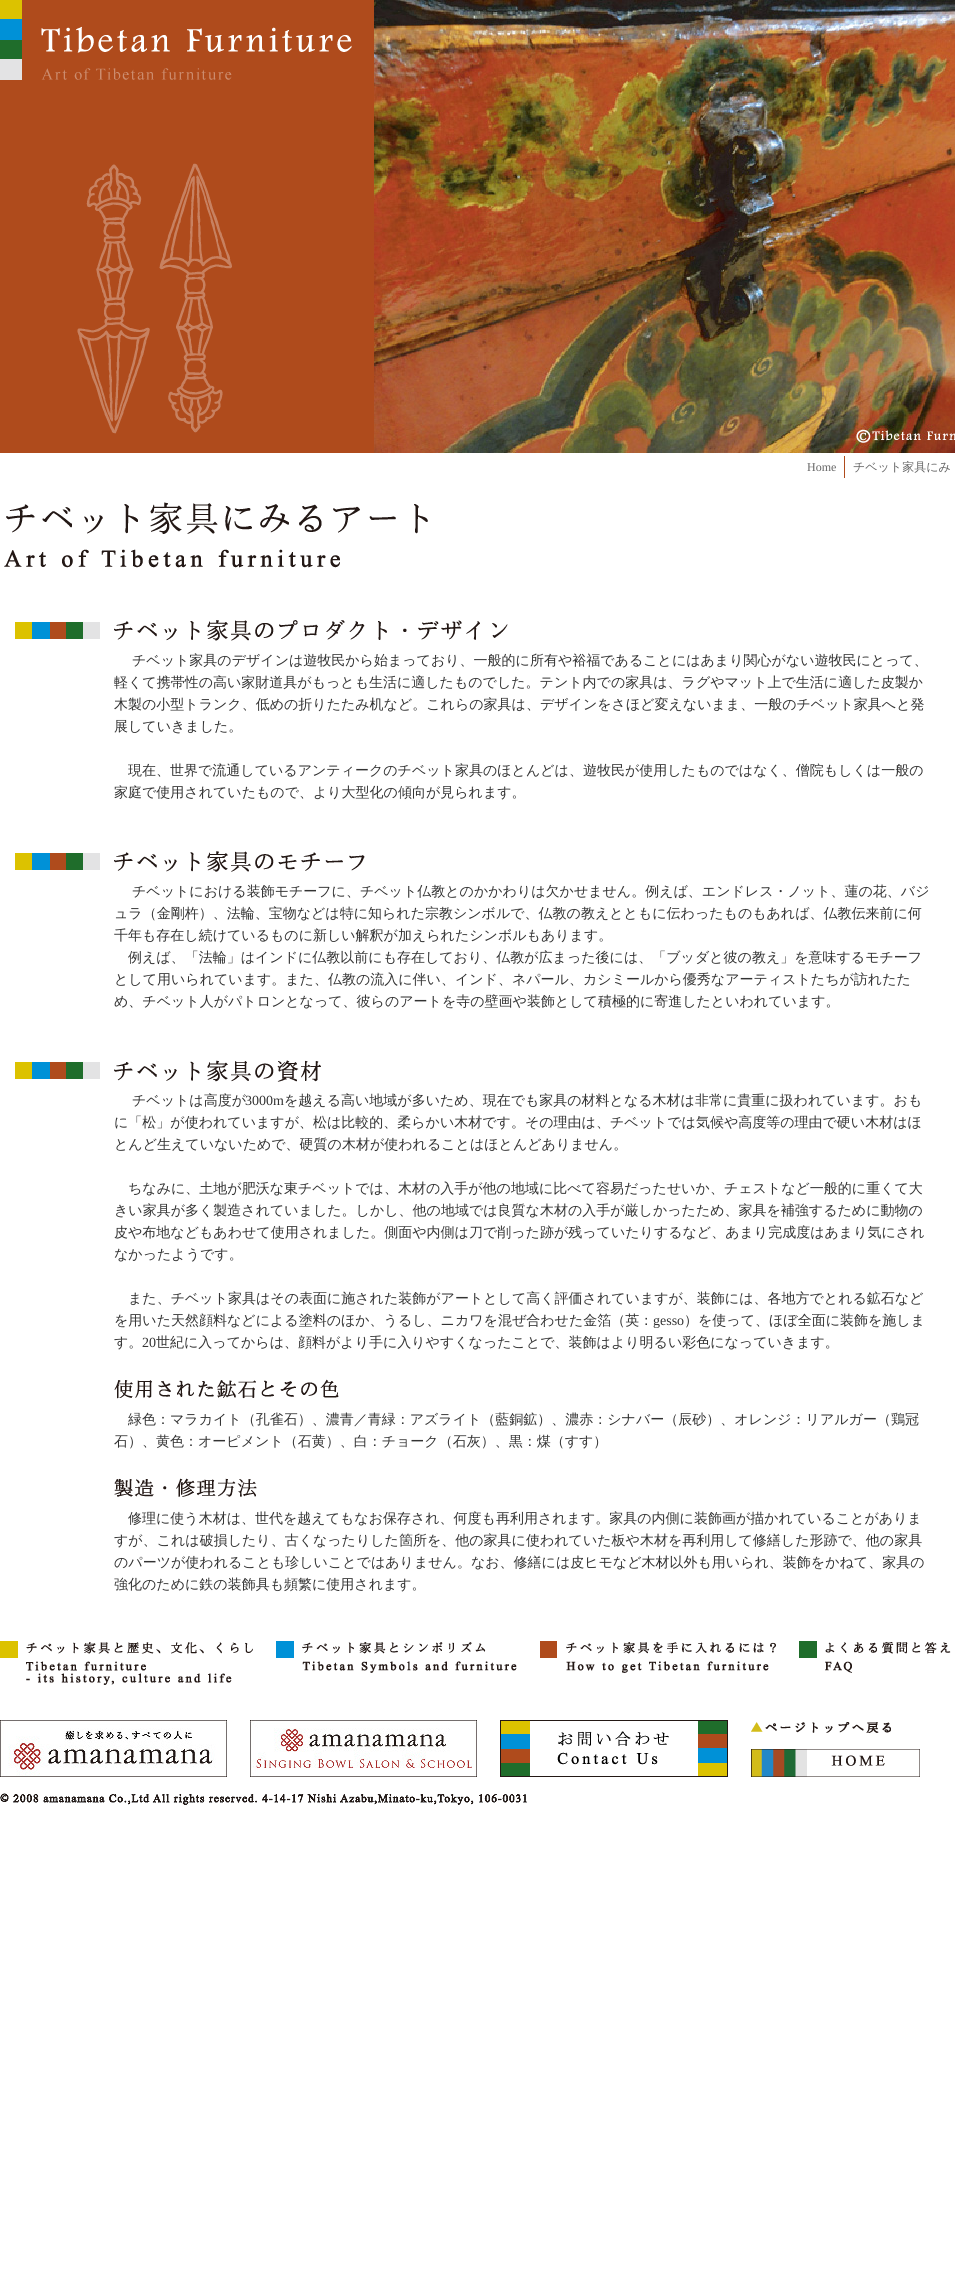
import math
import cairo



def draw_image(context, path, x, y, w, h):
    context.save()
    context.set_source_surface(cairo.ImageSurface.create_from_png(path), x, y)
    context.rectangle(x, y, w, h)
    context.fill()
    context.restore()


def draw(context):
    context.set_source_rgb(1, 1, 1)
    context.paint()
    draw_image(context, "images/1.png", 0, 0, 22, 85)
    draw_image(context, "images/2.png", 22, 0, 352, 85)
    draw_image(context, "images/3.png", 374, 0, 581, 453)
    draw_image(context, "images/4.png", 0, 85, 374, 368)
    context.set_source_rgb(175 / 255, 75 / 255, 28 / 255)
    context.rectangle(844, 456, 1, 22)
    context.fill()
    draw_image(context, "images/5.png", 4, 502, 424, 66)
    draw_image(context, "images/6.png", 15, 622, 85, 17)
    draw_image(context, "images/7.png", 114, 620, 394, 21)
    draw_image(context, "images/6.png", 15, 853, 85, 17)
    draw_image(context, "images/8.png", 114, 851, 251, 21)
    draw_image(context, "images/6.png", 15, 1062, 85, 17)
    draw_image(context, "images/9.png", 114, 1060, 207, 22)
    draw_image(context, "images/10.png", 114, 1379, 225, 20)
    draw_image(context, "images/11.png", 114, 1478, 143, 19)
    context.set_source_rgb(220 / 255, 194 / 255, 0)
    context.rectangle(0, 1641, 18, 17)
    context.fill()
    draw_image(context, "images/12.png", 26, 1642, 227, 43)
    context.set_source_rgb(0, 145 / 255, 215 / 255)
    context.rectangle(276, 1641, 18, 17)
    context.fill()
    draw_image(context, "images/13.png", 302, 1642, 215, 31)
    context.set_source_rgb(175 / 255, 75 / 255, 28 / 255)
    context.rectangle(540, 1641, 17, 17)
    context.fill()
    draw_image(context, "images/14.png", 566, 1642, 210, 31)
    context.set_source_rgb(31 / 255, 109 / 255, 43 / 255)
    context.rectangle(799, 1641, 18, 17)
    context.fill()
    draw_image(context, "images/15.png", 825, 1642, 126, 31)
    draw_image(context, "images/16.png", 0, 1720, 227, 57)
    draw_image(context, "images/17.png", 250, 1720, 227, 57)
    draw_image(context, "images/18.png", 500, 1720, 228, 57)
    draw_image(context, "images/19.png", 751, 1722, 140, 11)
    draw_image(context, "images/20.png", 751, 1749, 169, 28)
    draw_image(context, "images/21.png", 0, 1793, 527, 12)
    context.select_font_face("Liberation Serif")
    context.set_font_size(12)
    context.set_source_rgb(102 / 255, 102 / 255, 102 / 255)
    context.move_to(807, 471)
    context.show_text("Home")
    context.select_font_face("WenQuanYi Zen Hei Medium")
    context.move_to(853, 471)
    context.show_text("チベット家具にみ")
    context.set_font_size(14)
    context.set_source_rgb(51 / 255, 51 / 255, 51 / 255)
    context.move_to(132, 665)
    context.show_text("チベット家具のデザインは遊牧民から始まっており、一般的に所有や裕福であることにはあまり関心がない遊牧民にとって、")
    context.move_to(114, 687)
    context.show_text("軽くて携帯性の高い家財道具がもっとも生活に適したものでした。テント内での家具は、ラグやマット上で生活に適した皮製か")
    context.move_to(114, 709)
    context.show_text("木製の小型トランク、低めの折りたたみ机など。これらの家具は、デザインをさほど変えないまま、一般のチベット家具へと発")
    context.move_to(114, 731)
    context.show_text("展していきました。")
    context.move_to(128, 775)
    context.show_text("現在、世界で流通しているアンティークのチベット家具のほとんどは、遊牧民が使用したものではなく、僧院もしくは一般の")
    context.move_to(114, 797)
    context.show_text("家庭で使用されていたもので、より大型化の傾向が見られます。")
    context.move_to(132, 896)
    context.show_text("チベットにおける装飾モチーフに、チベット仏教とのかかわりは欠かせません。例えば、エンドレス・ノット、蓮の花、バジ")
    context.move_to(114, 918)
    context.show_text("ュラ（金剛杵）、法輪、宝物などは特に知られた宗教シンボルで、仏教の教えとともに伝わったものもあれば、仏教伝来前に何")
    context.move_to(114, 940)
    context.show_text("千年も存在し続けているものに新しい解釈が加えられたシンボルもあります。")
    context.move_to(128, 962)
    context.show_text("例えば、「法輪」はインドに仏教以前にも存在しており、仏教が広まった後には、「ブッダと彼の教え」を意味するモチーフ")
    context.move_to(114, 984)
    context.show_text("として用いられています。また、仏教の流入に伴い、インド、ネパール、カシミールから優秀なアーティストたちが訪れたた")
    context.move_to(114, 1006)
    context.show_text("め、チベット人がパトロンとなって、彼らのアートを寺の壁画や装飾として積極的に寄進したといわれています。")
    context.move_to(132, 1105)
    context.show_text("チベットは高度が")
    context.select_font_face("Liberation Serif")
    context.move_to(245, 1105)
    context.show_text("3000m")
    context.select_font_face("WenQuanYi Zen Hei Medium")
    context.move_to(284, 1105)
    context.show_text("を越える高い地域が多いため、現在でも家具の材料となる木材は非常に貴重に扱われています。おも")
    context.move_to(114, 1127)
    context.show_text("に「松」が使われていますが、松は比較的、柔らかい木材です。その理由は、チベットでは気候や高度等の理由で硬い木材はほ")
    context.move_to(114, 1149)
    context.show_text("とんど生えていないためで、硬質の木材が使われることはほとんどありません。")
    context.move_to(128, 1193)
    context.show_text("ちなみに、土地が肥沃な東チベットでは、木材の入手が他の地域に比べて容易だったせいか、チェストなど一般的に重くて大")
    context.move_to(114, 1215)
    context.show_text("きい家具が多く製造されていました。しかし、他の地域では良質な木材の入手が厳しかったため、家具を補強するために動物の")
    context.move_to(114, 1237)
    context.show_text("皮や布地などもあわせて使用されました。側面や内側は刀で削った跡が残っていたりするなど、あまり完成度はあまり気にされ")
    context.move_to(114, 1259)
    context.show_text("なかったようです。")
    context.move_to(128, 1303)
    context.show_text("また、チベット家具はその表面に施された装飾がアートとして高く評価されていますが、装飾には、各地方でとれる鉱石など")
    context.move_to(114, 1325)
    context.show_text("を用いた天然顔料などによる塗料のほか、うるし、ニカワを混ぜ合わせた金箔（英：")
    context.select_font_face("Liberation Serif")
    context.move_to(653, 1325)
    context.show_text("gesso")
    context.select_font_face("WenQuanYi Zen Hei Medium")
    context.move_to(684, 1325)
    context.show_text("）を使って、ほぼ全面に装飾を施しま")
    context.move_to(114, 1347)
    context.show_text("す。")
    context.select_font_face("Liberation Serif")
    context.move_to(142, 1347)
    context.show_text("20")
    context.select_font_face("WenQuanYi Zen Hei Medium")
    context.move_to(156, 1347)
    context.show_text("世紀に入ってからは、顔料がより手に入りやすくなったことで、装飾はより明るい彩色になっていきます。")
    context.move_to(128, 1424)
    context.show_text("緑色：マラカイト（孔雀石）、濃青／青緑：アズライト（藍銅鉱）、濃赤：シナバー（辰砂）、オレンジ：リアルガー（鶏冠")
    context.move_to(114, 1446)
    context.show_text("石）、黄色：オーピメント（石黄）、白：チョーク（石灰）、黒：煤（すす）")
    context.move_to(128, 1523)
    context.show_text("修理に使う木材は、世代を越えてもなお保存され、何度も再利用されます。家具の内側に装飾画が描かれていることがありま")
    context.move_to(114, 1545)
    context.show_text("すが、これは破損したり、古くなったりした箇所を、他の家具に使われていた板や木材を再利用して修繕した形跡で、他の家具")
    context.move_to(114, 1567)
    context.show_text("のパーツが使われることも珍しいことではありません。なお、修繕には皮ヒモなど木材以外も用いられ、装飾をかねて、家具の")
    context.move_to(114, 1589)
    context.show_text("強化のために鉄の装飾具も頻繁に使用されます。")


surface = cairo.ImageSurface(cairo.Format.RGB24, 955, 2285)
context = cairo.Context(surface)
options = cairo.FontOptions()
options.set_hint_metrics(cairo.HintMetrics.OFF)
options.set_hint_style(cairo.HintStyle.NONE)
context.set_font_options(options)
context.set_miter_limit(4)
draw(context)
surface.write_to_png("out.png")
